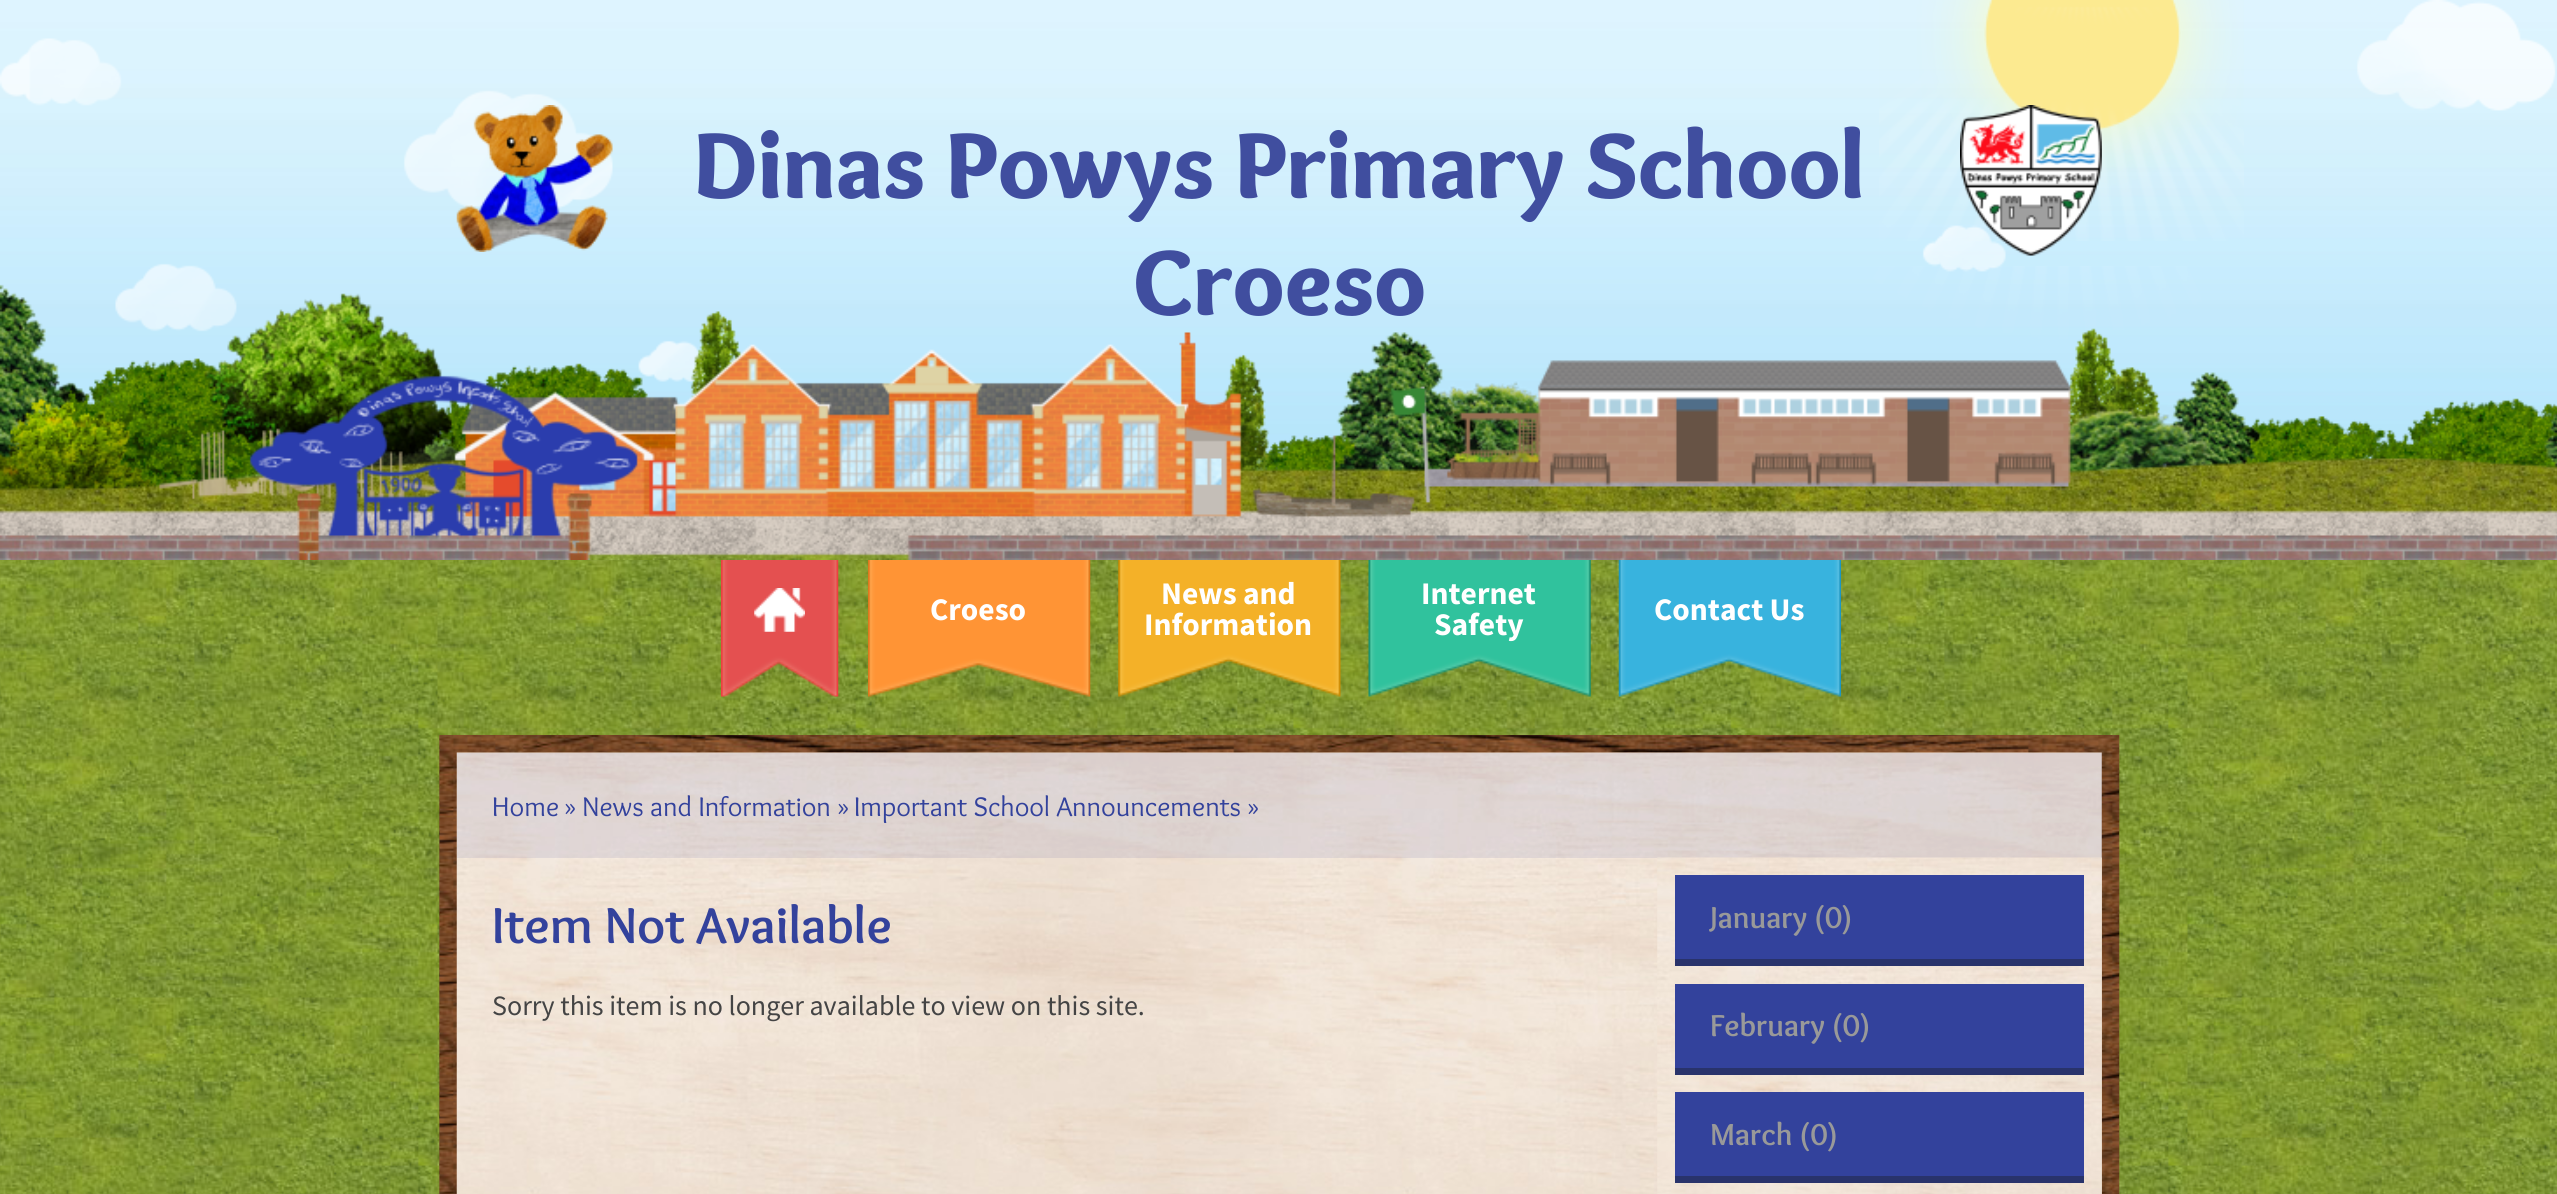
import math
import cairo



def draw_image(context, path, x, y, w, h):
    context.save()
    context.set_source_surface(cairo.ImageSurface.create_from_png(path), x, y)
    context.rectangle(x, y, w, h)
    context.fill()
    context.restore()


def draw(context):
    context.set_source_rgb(1, 1, 1)
    context.paint()
    draw_image(context, "images/1.png", 0, 0, 2557, 472)
    draw_image(context, "images/5.png", 1879, 0, 365, 241)
    draw_image(context, "images/2.png", 0, 0, 2556, 382)
    draw_image(context, "images/3.png", 456, 105, 157, 147)
    draw_image(context, "images/4.png", 1960, 105, 142, 151)
    draw_image(context, "images/6.png", 0, 266, 2557, 294)
    draw_image(context, "images/13.png", 0, 560, 2557, 634)
    draw_image(context, "images/7.png", 721, 560, 118, 137)
    draw_image(context, "images/8.png", 754, 588, 51, 44)
    draw_image(context, "images/9.png", 868, 560, 223, 137)
    draw_image(context, "images/10.png", 1118, 560, 223, 137)
    draw_image(context, "images/11.png", 1368, 560, 223, 137)
    draw_image(context, "images/12.png", 1618, 560, 223, 137)
    draw_image(context, "images/14.png", 439, 735, 1681, 459)
    draw_image(context, "images/15.png", 456, 752, 1646, 442)
    context.set_source_rgba(51 / 255, 66 / 255, 156 / 255, 0.1)
    context.rectangle(457, 753, 1645, 105)
    context.fill()
    draw_image(context, "images/16.png", 1657, 857, 445, 337)
    context.set_source_rgb(51 / 255, 66 / 255, 156 / 255)
    context.rectangle(1675, 875, 409, 84)
    context.fill()
    context.set_source_rgb(41 / 255, 51 / 255, 107 / 255)
    context.rectangle(1675, 959, 409, 7)
    context.fill()
    context.set_source_rgb(51 / 255, 66 / 255, 156 / 255)
    context.rectangle(1675, 984, 409, 84)
    context.fill()
    context.set_source_rgb(41 / 255, 51 / 255, 107 / 255)
    context.rectangle(1675, 1068, 409, 7)
    context.fill()
    context.set_source_rgb(51 / 255, 66 / 255, 156 / 255)
    context.rectangle(1675, 1092, 409, 84)
    context.fill()
    context.set_source_rgb(41 / 255, 51 / 255, 107 / 255)
    context.rectangle(1675, 1176, 409, 7)
    context.fill()
    context.select_font_face("Overlock Black")
    context.set_font_size(96.25)
    context.set_source_rgb(64 / 255, 78 / 255, 159 / 255)
    context.move_to(694, 198)
    context.show_text("Dinas Powys Primary School")
    context.move_to(1133, 315)
    context.show_text("Croeso")
    context.select_font_face("Source Sans Pro", cairo.FontSlant.NORMAL, cairo.FontWeight.BOLD)
    context.set_font_size(31.5)
    context.set_source_rgb(1, 1, 1)
    context.move_to(930, 620)
    context.show_text("Croeso")
    context.move_to(1161, 604)
    context.show_text("News and")
    context.move_to(1144, 635)
    context.show_text("Information")
    context.move_to(1421, 604)
    context.show_text("Internet")
    context.move_to(1434, 635)
    context.show_text("Safety")
    context.move_to(1654, 620)
    context.show_text("Contact Us")
    context.select_font_face("Overlock")
    context.set_font_size(28)
    context.set_source_rgb(51 / 255, 66 / 255, 156 / 255)
    context.move_to(492, 816)
    context.show_text("Home")
    context.select_font_face("Source Sans Pro")
    context.move_to(564, 816)
    context.show_text("»")
    context.select_font_face("Overlock")
    context.move_to(582, 816)
    context.show_text("News and Information")
    context.select_font_face("Source Sans Pro")
    context.move_to(837, 816)
    context.show_text("»")
    context.select_font_face("Overlock")
    context.move_to(854, 816)
    context.show_text("Important School Announcements")
    context.select_font_face("Source Sans Pro")
    context.move_to(1247, 816)
    context.show_text("»")
    context.select_font_face("Overlock", cairo.FontSlant.NORMAL, cairo.FontWeight.BOLD)
    context.set_font_size(52.5)
    context.move_to(492, 943)
    context.show_text("Item Not Available")
    context.select_font_face("Source Sans Pro")
    context.set_font_size(28)
    context.set_source_rgb(68 / 255, 68 / 255, 68 / 255)
    context.move_to(492, 1015)
    context.show_text("Sorry this item is no longer available to view on this site.")
    context.select_font_face("Overlock", cairo.FontSlant.NORMAL, cairo.FontWeight.BOLD)
    context.set_font_size(31.5)
    context.set_source_rgb(153 / 255, 153 / 255, 153 / 255)
    context.move_to(1710, 928)
    context.show_text("January (0)")
    context.move_to(1710, 1036)
    context.show_text("February (0)")
    context.move_to(1710, 1145)
    context.show_text("March (0)")


surface = cairo.ImageSurface(cairo.Format.RGB24, 2557, 1194)
context = cairo.Context(surface)
options = cairo.FontOptions()
options.set_hint_metrics(cairo.HintMetrics.OFF)
options.set_hint_style(cairo.HintStyle.NONE)
context.set_font_options(options)
context.set_miter_limit(4)
draw(context)
surface.write_to_png("out.png")
